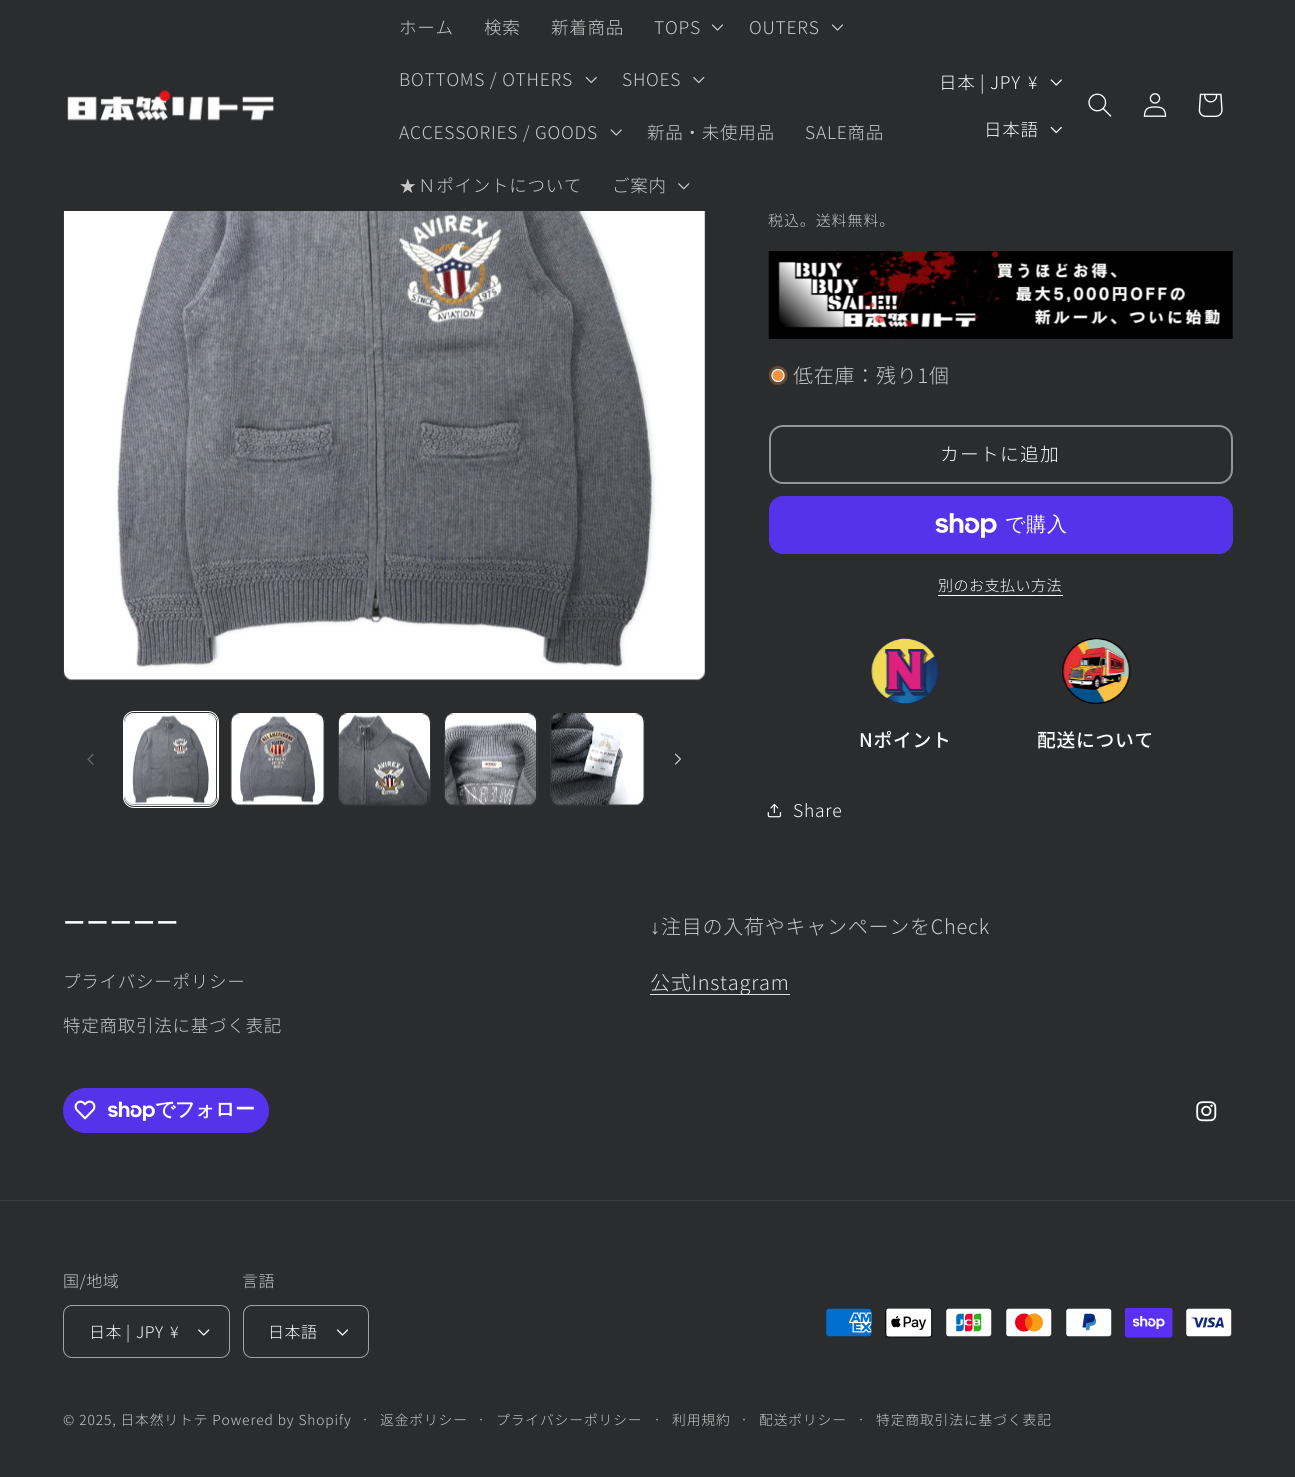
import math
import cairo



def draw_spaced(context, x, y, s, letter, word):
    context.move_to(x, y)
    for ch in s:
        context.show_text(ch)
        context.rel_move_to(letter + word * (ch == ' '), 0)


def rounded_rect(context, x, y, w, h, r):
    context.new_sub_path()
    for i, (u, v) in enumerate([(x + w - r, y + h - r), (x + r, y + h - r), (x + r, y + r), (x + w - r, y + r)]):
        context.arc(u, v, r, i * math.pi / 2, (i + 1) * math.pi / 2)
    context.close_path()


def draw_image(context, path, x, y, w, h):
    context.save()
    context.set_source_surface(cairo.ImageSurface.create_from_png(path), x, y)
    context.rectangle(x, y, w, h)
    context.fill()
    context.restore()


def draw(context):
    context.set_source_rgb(43 / 255, 44 / 255, 45 / 255)
    context.paint()
    rounded_rect(context, 63.5, 38.5, 642, 642, 9.5)
    context.set_source_rgb(54 / 255, 54 / 255, 55 / 255)
    context.set_line_width(1)
    context.stroke()
    context.set_source_rgb(43 / 255, 44 / 255, 45 / 255)
    context.rectangle(63, 38, 643, 173)
    context.fill()
    draw_image(context, "images/1.png", 67, 89, 207, 32)
    draw_image(context, "images/2.png", 712, 24, 11, 7)
    draw_image(context, "images/2.png", 832, 24, 11, 7)
    draw_image(context, "images/3.png", 585, 76, 12, 8)
    draw_image(context, "images/4.png", 693, 76, 12, 8)
    draw_image(context, "images/5.png", 610, 129, 12, 7)
    draw_image(context, "images/6.png", 678, 183, 12, 7)
    draw_image(context, "images/7.png", 1050, 79, 12, 7)
    draw_image(context, "images/8.png", 1050, 126, 12, 8)
    draw_image(context, "images/9.png", 1088, 93, 24, 24)
    draw_image(context, "images/10.png", 1143, 93, 24, 24)
    draw_image(context, "images/11.png", 1198, 93, 25, 24)
    draw_image(context, "images/12.png", 64, 211, 641, 469)
    draw_image(context, "images/13.png", 87, 753, 7, 12)
    rounded_rect(context, 123.5, 711.5, 95, 96, 10.5)
    context.set_source_rgb(253 / 255, 253 / 255, 253 / 255)
    context.stroke()
    rounded_rect(context, 124.5, 713.5, 93, 92, 9.5)
    context.stroke()
    draw_image(context, "images/14.png", 125, 713, 92, 92)
    rounded_rect(context, 230.5, 713.5, 94, 92, 9.5)
    context.set_source_rgb(54 / 255, 54 / 255, 55 / 255)
    context.stroke()
    draw_image(context, "images/15.png", 231, 713, 93, 92)
    rounded_rect(context, 338.5, 713.5, 92, 92, 9.5)
    context.stroke()
    draw_image(context, "images/16.png", 338, 713, 92, 92)
    rounded_rect(context, 444.5, 713.5, 93, 92, 9.5)
    context.stroke()
    draw_image(context, "images/17.png", 445, 713, 92, 92)
    rounded_rect(context, 550.5, 713.5, 94, 92, 9.5)
    context.stroke()
    draw_image(context, "images/18.png", 551, 713, 93, 92)
    draw_image(context, "images/19.png", 675, 753, 6, 12)
    draw_image(context, "images/20.png", 768, 251, 465, 88)
    context.save()
    context.rectangle(769, 366, 19, 19)
    context.clip()
    context.set_source_rgb(102 / 255, 75 / 255, 51 / 255)
    context.arc(778, 375.5, 9.5, 0, 2 * math.pi)
    context.fill()
    context.restore()
    context.set_source_rgb(238 / 255, 148 / 255, 65 / 255)
    context.arc(778, 375.5, 6, 0, 2 * math.pi)
    context.fill_preserve()
    context.set_source_rgb(1, 1, 1)
    context.set_line_width(1.2)
    context.stroke()
    rounded_rect(context, 770, 426, 462, 57, 13)
    context.set_source_rgb(148 / 255, 149 / 255, 149 / 255)
    context.set_line_width(2)
    context.stroke()
    context.set_source_rgb(84 / 255, 51 / 255, 235 / 255)
    rounded_rect(context, 769, 496, 464, 58, 14)
    context.fill()
    draw_image(context, "images/21.png", 935, 513, 62, 25)
    context.set_source_rgb(253 / 255, 253 / 255, 253 / 255)
    context.rectangle(938, 595, 125, 1)
    context.fill()
    draw_image(context, "images/22.png", 870, 638, 70, 66)
    draw_image(context, "images/23.png", 1062, 638, 69, 66)
    draw_image(context, "images/24.png", 767, 803, 15, 15)
    context.set_source_rgb(222 / 255, 222 / 255, 222 / 255)
    context.rectangle(650, 994, 140, 1)
    context.fill()
    context.set_source_rgb(84 / 255, 51 / 255, 235 / 255)
    rounded_rect(context, 63, 1088, 206, 45, 22.5)
    context.fill()
    draw_image(context, "images/25.png", 74, 1100, 22, 20)
    draw_image(context, "images/26.png", 108, 1101, 47, 20)
    draw_image(context, "images/27.png", 1196, 1101, 21, 21)
    context.set_source_rgb(60 / 255, 61 / 255, 62 / 255)
    context.rectangle(0, 1200, 1295, 1)
    context.fill()
    draw_image(context, "images/28.png", 198, 1329, 12, 7)
    rounded_rect(context, 63.5, 1305.5, 166, 52, 8.5)
    context.set_source_rgb(160 / 255, 160 / 255, 161 / 255)
    context.set_line_width(1)
    context.stroke()
    draw_image(context, "images/29.png", 337, 1329, 11, 7)
    rounded_rect(context, 243.5, 1305.5, 125, 52, 8.5)
    context.stroke()
    draw_image(context, "images/30.png", 826, 1308, 46, 29)
    draw_image(context, "images/31.png", 885, 1308, 48, 30)
    draw_image(context, "images/32.png", 946, 1308, 46, 29)
    draw_image(context, "images/33.png", 1006, 1308, 46, 29)
    draw_image(context, "images/34.png", 1066, 1308, 46, 29)
    draw_image(context, "images/35.png", 1125, 1308, 48, 30)
    draw_image(context, "images/36.png", 1186, 1308, 46, 29)
    context.select_font_face("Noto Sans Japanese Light")
    context.set_font_size(17.5)
    context.set_source_rgb(201 / 255, 201 / 255, 201 / 255)
    draw_spaced(context, 399, 34, "ホーム", 0.75, 0)
    draw_spaced(context, 484, 34, "検索", 0.75, 0)
    draw_spaced(context, 551, 34, "新着商品", 0.75, 0)
    draw_spaced(context, 654, 34, "TOPS", 0.75, 0)
    draw_spaced(context, 749, 34, "OUTERS", 0.75, 0)
    draw_spaced(context, 399, 86, "BOTTOMS / OTHERS", 0.75, 0)
    draw_spaced(context, 622, 86, "SHOES", 0.75, 0)
    draw_spaced(context, 399, 139, "ACCESSORIES / GOODS", 0.75, 0)
    draw_spaced(context, 647, 139, "新品・未使用品", 0.75, 0)
    draw_spaced(context, 805, 139, "SALE商品", 0.75, 0)
    context.select_font_face("WenQuanYi Zen Hei Medium")
    draw_spaced(context, 399, 192, "★", 0.75, 0)
    context.select_font_face("Noto Sans Japanese Light")
    draw_spaced(context, 418, 192, "Ｎポイントについて", 0.75, 0)
    draw_spaced(context, 612, 192, "ご案内", 0.75, 0)
    context.set_source_rgb(253 / 255, 253 / 255, 253 / 255)
    draw_spaced(context, 939, 89, "日本 |", 0.75, 0)
    draw_spaced(context, 990, 89, "JPY", 0.75, 0)
    draw_spaced(context, 1028, 89, "¥", 0.75, 0)
    draw_spaced(context, 984, 136, "日本語", 0.75, 0)
    context.set_font_size(15)
    context.set_source_rgb(201 / 255, 201 / 255, 201 / 255)
    draw_spaced(context, 768, 226, "税込。送料無料。", 0.9, 0)
    context.set_font_size(20)
    draw_spaced(context, 793, 383, "低在庫：残り1個", 0.75, 0)
    context.set_font_size(18.75)
    context.set_source_rgb(253 / 255, 253 / 255, 253 / 255)
    draw_spaced(context, 940, 461, "カートに追加", 1.25, 0)
    context.select_font_face("WenQuanYi Zen Hei Medium")
    context.set_font_size(20)
    draw_spaced(context, 1005, 531, "で購入", 0.75, 0)
    context.select_font_face("Noto Sans Japanese Light")
    context.set_font_size(15)
    draw_spaced(context, 938, 591, "別のお支払い方法", 0.5, 0)
    context.select_font_face("Noto Sans Japanese Medium")
    context.set_font_size(18.75)
    draw_spaced(context, 859, 747, "Nポイント", 0.75, 0)
    draw_spaced(context, 1037, 747, "配送について", 0.75, 0)
    context.select_font_face("Noto Sans Japanese Light")
    context.set_font_size(17.5)
    draw_spaced(context, 793, 817, "Share", 0.75, 0)
    context.select_font_face("Noto Sans Japanese Medium")
    context.set_font_size(22.5)
    draw_spaced(context, 63, 931, "ーーーーー", 0.75, 0)
    context.select_font_face("Noto Sans Japanese Light")
    context.set_font_size(17.5)
    context.set_source_rgb(201 / 255, 201 / 255, 201 / 255)
    draw_spaced(context, 63, 988, "プライバシーポリシー", 0.75, 0)
    draw_spaced(context, 63, 1032, "特定商取引法に基づく表記", 0.75, 0)
    context.select_font_face("Liberation Sans")
    context.set_font_size(20)
    draw_spaced(context, 650, 934, "↓", 0.75, 0)
    context.select_font_face("Noto Sans Japanese Light")
    draw_spaced(context, 661, 934, "注目の入荷やキャンペーンをCheck", 0.75, 0)
    context.set_source_rgb(222 / 255, 222 / 255, 222 / 255)
    draw_spaced(context, 650, 990, "公式Instagram", 0.75, 0)
    context.select_font_face("WenQuanYi Zen Hei", cairo.FontSlant.NORMAL, cairo.FontWeight.BOLD)
    context.set_source_rgb(253 / 255, 253 / 255, 253 / 255)
    draw_spaced(context, 155, 1116, "でフォロー", -0.5, 0)
    context.select_font_face("Noto Sans Japanese Light")
    context.set_font_size(16)
    context.set_source_rgb(201 / 255, 201 / 255, 201 / 255)
    draw_spaced(context, 63, 1287, "国/地域", 0.5, 0)
    context.set_source_rgb(253 / 255, 253 / 255, 253 / 255)
    draw_spaced(context, 89, 1338, "日本 |", 0.5, 0)
    draw_spaced(context, 136, 1338, "JPY", 0.5, 0)
    draw_spaced(context, 170, 1338, "¥", 0.5, 0)
    context.set_source_rgb(201 / 255, 201 / 255, 201 / 255)
    draw_spaced(context, 242, 1287, "言語", 0.5, 0)
    context.set_source_rgb(253 / 255, 253 / 255, 253 / 255)
    draw_spaced(context, 268, 1338, "日本語", 0.5, 0)
    context.set_font_size(13.75)
    context.set_source_rgb(201 / 255, 201 / 255, 201 / 255)
    draw_spaced(context, 63, 1425, "© 2025, 日本然リトテ Powered by Shopify", 0.9, 0)
    context.set_font_size(15)
    draw_spaced(context, 361, 1425, "·", 0.9, 0)
    context.set_font_size(13.75)
    draw_spaced(context, 380, 1425, "返金ポリシー", 0.9, 0)
    context.set_font_size(15)
    draw_spaced(context, 477, 1425, "·", 0.9, 0)
    context.set_font_size(13.75)
    draw_spaced(context, 496, 1425, "プライバシーポリシー", 0.9, 0)
    context.set_font_size(15)
    draw_spaced(context, 653, 1425, "·", 0.9, 0)
    context.set_font_size(13.75)
    draw_spaced(context, 672, 1425, "利用規約", 0.9, 0)
    context.set_font_size(15)
    draw_spaced(context, 740, 1425, "·", 0.9, 0)
    context.set_font_size(13.75)
    draw_spaced(context, 759, 1425, "配送ポリシー", 0.9, 0)
    context.set_font_size(15)
    draw_spaced(context, 857, 1425, "·", 0.9, 0)
    context.set_font_size(13.75)
    draw_spaced(context, 876, 1425, "特定商取引法に基づく表記", 0.9, 0)


surface = cairo.ImageSurface(cairo.Format.RGB24, 1295, 1477)
context = cairo.Context(surface)
options = cairo.FontOptions()
options.set_hint_metrics(cairo.HintMetrics.OFF)
options.set_hint_style(cairo.HintStyle.NONE)
context.set_font_options(options)
context.set_miter_limit(4)
draw(context)
surface.write_to_png("out.png")
